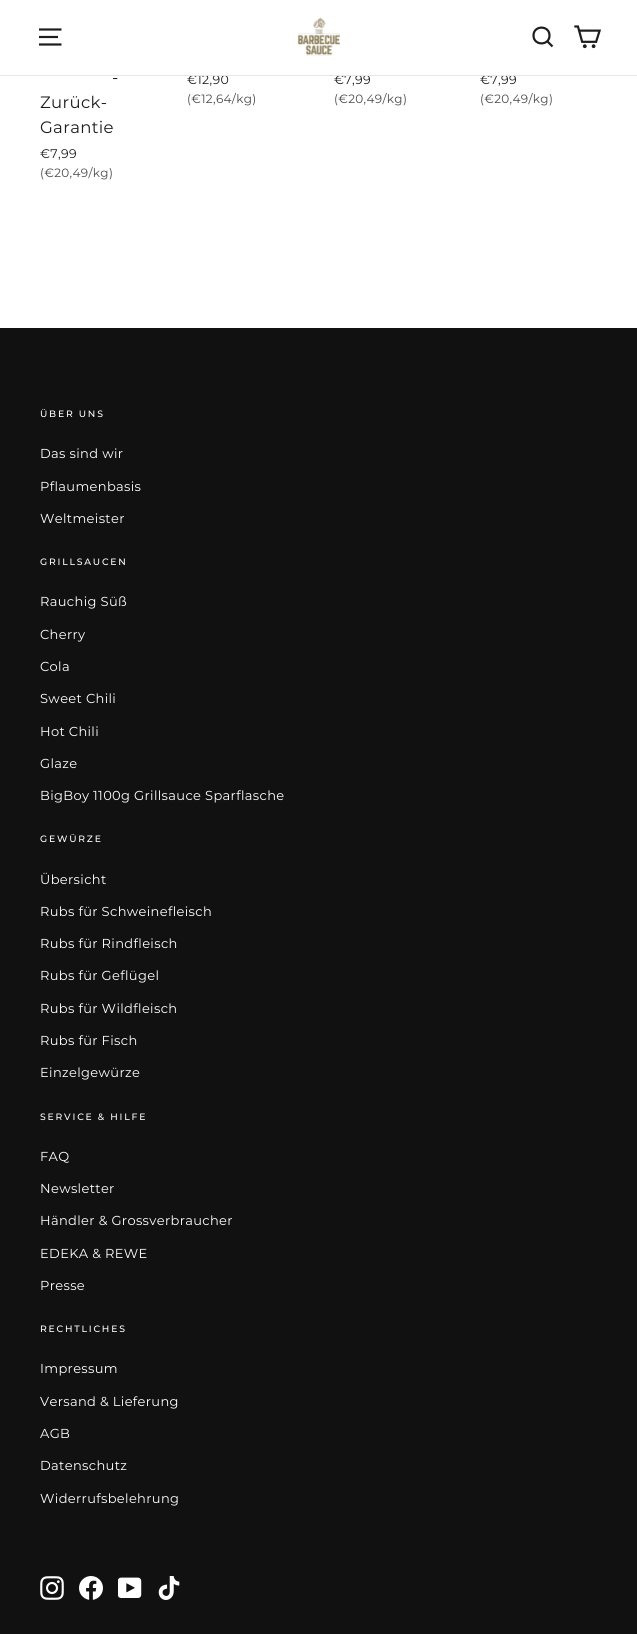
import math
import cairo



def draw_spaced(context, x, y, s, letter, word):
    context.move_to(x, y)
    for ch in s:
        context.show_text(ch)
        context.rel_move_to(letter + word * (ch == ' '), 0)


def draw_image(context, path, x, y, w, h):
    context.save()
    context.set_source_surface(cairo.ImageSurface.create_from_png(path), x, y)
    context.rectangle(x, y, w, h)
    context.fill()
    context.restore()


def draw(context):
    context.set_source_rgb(1, 1, 1)
    context.paint()
    context.new_path()
    context.move_to(39, 29.5)
    context.line_to(61.5, 29.5)
    context.move_to(39, 37)
    context.line_to(58, 37)
    context.move_to(39, 44.5)
    context.line_to(61.5, 44.5)
    context.set_source_rgb(28 / 255, 29 / 255, 29 / 255)
    context.set_line_width(2.2)
    context.stroke()
    draw_image(context, "images/1.png", 297, 18, 43, 38)
    context.new_path()
    context.move_to(549.5, 35.5)
    context.curve_to(549.5, 46, 533.5, 46, 533.5, 35.5)
    context.curve_to(533.5, 25, 549.5, 25, 549.5, 35.5)
    context.close_path()
    context.move_to(552.5, 46.5)
    context.line_to(547.5, 41.5)
    context.stroke()
    draw_image(context, "images/2.png", 574, 25, 27, 24)
    context.set_source_rgb(17 / 255, 17 / 255, 17 / 255)
    context.rectangle(0, 328, 637, 1306)
    context.fill()
    draw_image(context, "images/3.png", 40, 1576, 24, 24)
    draw_image(context, "images/4.png", 79, 1576, 24, 24)
    draw_image(context, "images/5.png", 118, 1577, 24, 21)
    draw_image(context, "images/6.png", 158, 1576, 22, 24)
    context.select_font_face("Montserrat")
    context.set_font_size(16.5)
    context.set_source_rgb(29 / 255, 29 / 255, 29 / 255)
    draw_spaced(context, 112, 83, "-", 0.35, 0)
    draw_spaced(context, 40, 108, "Zurück-", 0.35, 0)
    draw_spaced(context, 40, 133, "Garantie", 0.35, 0)
    context.set_font_size(12.5)
    draw_spaced(context, 40, 158, "€7,99", 0.35, 0)
    context.set_font_size(12)
    context.set_source_rgb(74 / 255, 74 / 255, 74 / 255)
    draw_spaced(context, 40, 177, "(€20,49/kg)", 0.35, 0)
    context.set_font_size(12.5)
    context.set_source_rgb(29 / 255, 29 / 255, 29 / 255)
    draw_spaced(context, 187, 84, "€12,90", 0.35, 0)
    context.set_font_size(12)
    context.set_source_rgb(74 / 255, 74 / 255, 74 / 255)
    draw_spaced(context, 187, 103, "(€12,64/kg)", 0.35, 0)
    context.set_font_size(12.5)
    context.set_source_rgb(29 / 255, 29 / 255, 29 / 255)
    draw_spaced(context, 334, 84, "€7,99", 0.35, 0)
    context.set_font_size(12)
    context.set_source_rgb(74 / 255, 74 / 255, 74 / 255)
    draw_spaced(context, 334, 103, "(€20,49/kg)", 0.35, 0)
    context.set_font_size(12.5)
    context.set_source_rgb(29 / 255, 29 / 255, 29 / 255)
    draw_spaced(context, 480, 84, "€7,99", 0.35, 0)
    context.set_source_rgb(232 / 255, 232 / 255, 225 / 255)
    context.rectangle(0, 75, 637, 1)
    context.fill()
    context.set_font_size(12)
    context.set_source_rgb(74 / 255, 74 / 255, 74 / 255)
    draw_spaced(context, 480, 103, "(€20,49/kg)", 0.35, 0)
    context.select_font_face("Montserrat Medium")
    context.set_font_size(9.25)
    context.set_source_rgb(1, 1, 1)
    draw_spaced(context, 40, 417, "ÜBER UNS", 1.8, 0)
    context.select_font_face("Montserrat")
    context.set_font_size(13)
    draw_spaced(context, 40, 458, "Das sind wir", 0.35, 0)
    draw_spaced(context, 40, 491, "Pflaumenbasis", 0.35, 0)
    draw_spaced(context, 40, 523, "Weltmeister", 0.35, 0)
    context.select_font_face("Montserrat Medium")
    context.set_font_size(9.25)
    draw_spaced(context, 40, 565, "GRILLSAUCEN", 1.8, 0)
    context.select_font_face("Montserrat")
    context.set_font_size(13)
    draw_spaced(context, 40, 606, "Rauchig Süß", 0.35, 0)
    draw_spaced(context, 40, 639, "Cherry", 0.35, 0)
    draw_spaced(context, 40, 671, "Cola", 0.35, 0)
    draw_spaced(context, 40, 703, "Sweet Chili", 0.35, 0)
    draw_spaced(context, 40, 736, "Hot Chili", 0.35, 0)
    draw_spaced(context, 40, 768, "Glaze", 0.35, 0)
    draw_spaced(context, 40, 800, "BigBoy 1100g Grillsauce Sparflasche", 0.35, 0)
    context.select_font_face("Montserrat Medium")
    context.set_font_size(9.25)
    draw_spaced(context, 40, 842, "GEWÜRZE", 1.8, 0)
    context.select_font_face("Montserrat")
    context.set_font_size(13)
    draw_spaced(context, 40, 884, "Übersicht", 0.35, 0)
    draw_spaced(context, 40, 916, "Rubs für Schweinefleisch", 0.35, 0)
    draw_spaced(context, 40, 948, "Rubs für Rindfleisch", 0.35, 0)
    draw_spaced(context, 40, 980, "Rubs für Geflügel", 0.35, 0)
    draw_spaced(context, 40, 1013, "Rubs für Wildfleisch", 0.35, 0)
    draw_spaced(context, 40, 1045, "Rubs für Fisch", 0.35, 0)
    draw_spaced(context, 40, 1077, "Einzelgewürze", 0.35, 0)
    context.select_font_face("Montserrat Medium")
    context.set_font_size(9.25)
    draw_spaced(context, 40, 1120, "SERVICE & HILFE", 1.8, 0)
    context.select_font_face("Montserrat")
    context.set_font_size(13)
    draw_spaced(context, 40, 1161, "FAQ", 0.35, 0)
    draw_spaced(context, 40, 1193, "Newsletter", 0.35, 0)
    draw_spaced(context, 40, 1225, "Händler & Grossverbraucher", 0.35, 0)
    draw_spaced(context, 40, 1258, "EDEKA & REWE", 0.35, 0)
    draw_spaced(context, 40, 1290, "Presse", 0.35, 0)
    context.select_font_face("Montserrat Medium")
    context.set_font_size(9.25)
    draw_spaced(context, 40, 1332, "RECHTLICHES", 1.8, 0)
    context.select_font_face("Montserrat")
    context.set_font_size(13)
    draw_spaced(context, 40, 1373, "Impressum", 0.35, 0)
    draw_spaced(context, 40, 1406, "Versand & Lieferung", 0.35, 0)
    draw_spaced(context, 40, 1438, "AGB", 0.35, 0)
    draw_spaced(context, 40, 1470, "Datenschutz", 0.35, 0)
    draw_spaced(context, 40, 1503, "Widerrufsbelehrung", 0.35, 0)


surface = cairo.ImageSurface(cairo.Format.RGB24, 637, 1634)
context = cairo.Context(surface)
options = cairo.FontOptions()
options.set_hint_metrics(cairo.HintMetrics.OFF)
options.set_hint_style(cairo.HintStyle.NONE)
context.set_font_options(options)
context.set_miter_limit(4)
draw(context)
surface.write_to_png("out.png")
